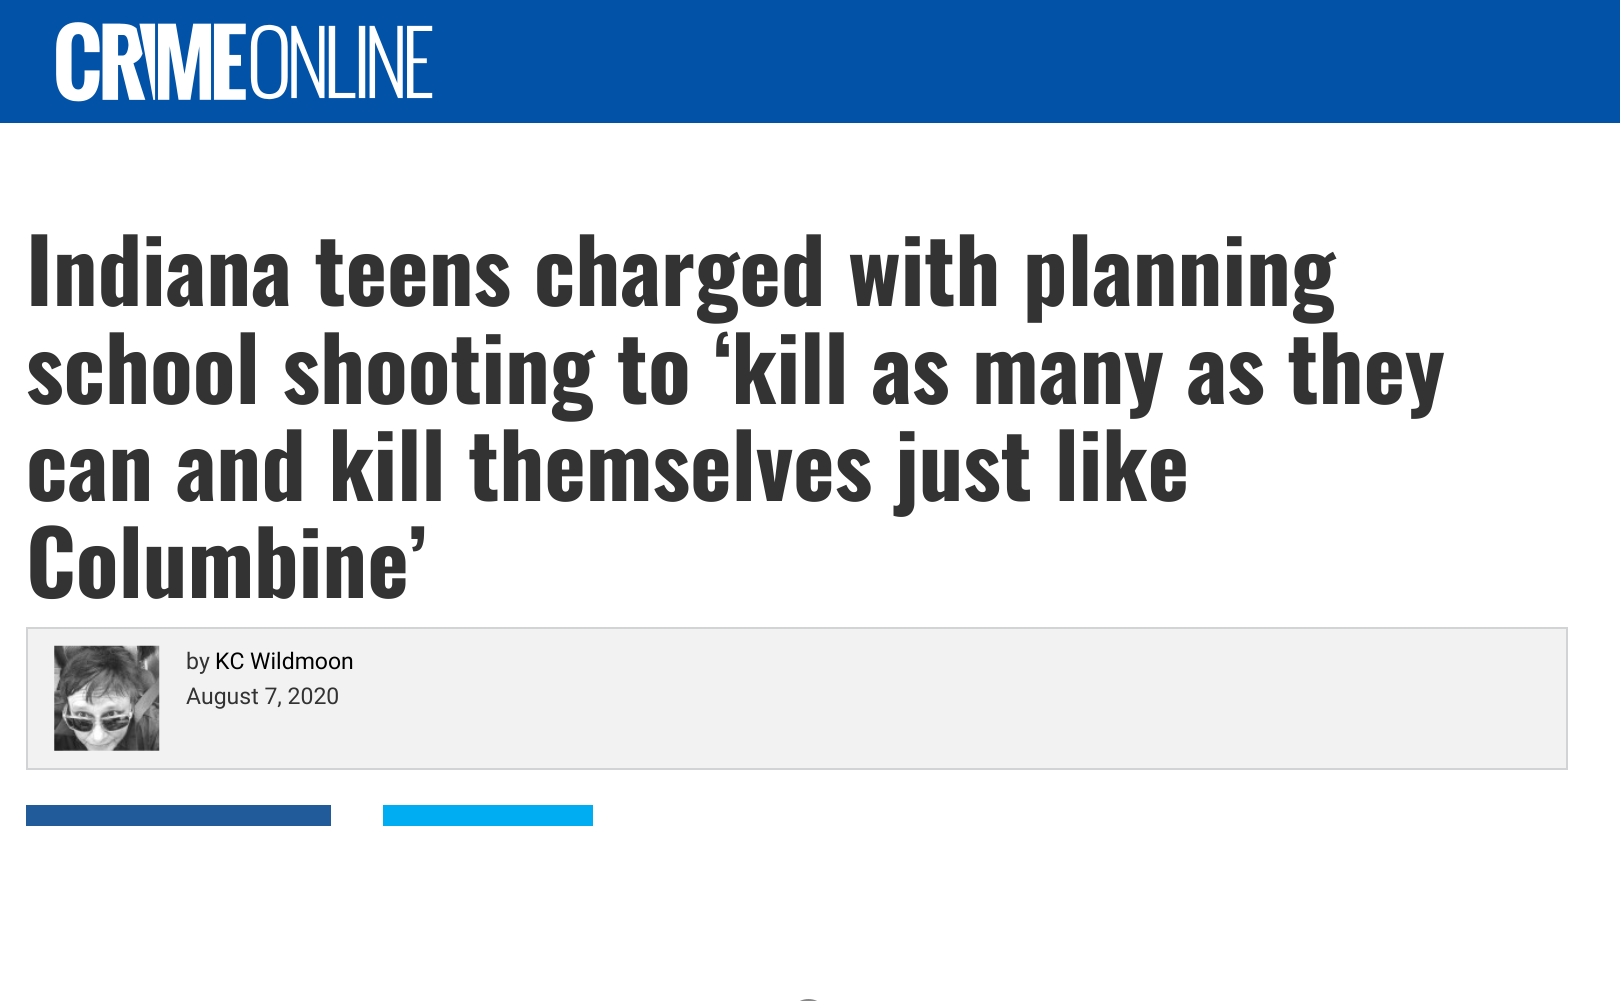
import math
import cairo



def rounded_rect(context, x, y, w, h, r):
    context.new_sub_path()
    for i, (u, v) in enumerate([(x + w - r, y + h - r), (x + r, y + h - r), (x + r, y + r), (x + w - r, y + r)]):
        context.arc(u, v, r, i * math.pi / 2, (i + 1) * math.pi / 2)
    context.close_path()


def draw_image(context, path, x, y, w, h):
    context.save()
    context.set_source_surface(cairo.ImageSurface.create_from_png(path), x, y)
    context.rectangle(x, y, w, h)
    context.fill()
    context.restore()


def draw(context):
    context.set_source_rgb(1, 1, 1)
    context.paint()
    context.set_source_rgb(2 / 255, 83 / 255, 168 / 255)
    context.rectangle(0, 0, 1620, 123)
    context.fill()
    draw_image(context, "images/1.png", 56, 22, 377, 80)
    context.set_source_rgb(242 / 255, 242 / 255, 242 / 255)
    context.rectangle(27, 628, 1540, 141)
    context.fill_preserve()
    context.set_source_rgb(210 / 255, 211 / 255, 212 / 255)
    context.stroke()
    draw_image(context, "images/2.png", 54, 645, 106, 106)
    context.set_source_rgb(34 / 255, 91 / 255, 153 / 255)
    context.rectangle(26, 805, 305, 21)
    context.fill()
    context.set_source_rgb(0, 173 / 255, 242 / 255)
    context.rectangle(383, 805, 210, 21)
    context.fill()
    rounded_rect(context, 790, 1000, 37, 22, 18.5)
    context.set_source_rgb(249 / 255, 249 / 255, 249 / 255)
    context.stroke()
    rounded_rect(context, 790, 1000, 37, 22, 18.5)
    context.set_source_rgb(136 / 255, 136 / 255, 136 / 255)
    context.stroke()
    context.select_font_face("Oswald", cairo.FontSlant.NORMAL, cairo.FontWeight.BOLD)
    context.set_font_size(88.5)
    context.set_source_rgb(51 / 255, 51 / 255, 51 / 255)
    context.move_to(26, 306)
    context.show_text("Indiana teens charged with planning")
    context.move_to(26, 404)
    context.show_text("school shooting to ‘kill as many as they")
    context.move_to(26, 501)
    context.show_text("can and kill themselves just like")
    context.move_to(26, 598)
    context.show_text("Columbine’")
    context.select_font_face("Roboto")
    context.set_font_size(23)
    context.move_to(186, 669)
    context.show_text("by")
    context.set_source_rgb(0, 0, 0)
    context.move_to(215, 669)
    context.show_text("KC Wildmoon")
    context.set_source_rgb(51 / 255, 51 / 255, 51 / 255)
    context.move_to(186, 704)
    context.show_text("August 7, 2020")


surface = cairo.ImageSurface(cairo.Format.RGB24, 1620, 1001)
context = cairo.Context(surface)
options = cairo.FontOptions()
options.set_hint_metrics(cairo.HintMetrics.OFF)
options.set_hint_style(cairo.HintStyle.NONE)
context.set_font_options(options)
context.set_miter_limit(4)
draw(context)
surface.write_to_png("out.png")
